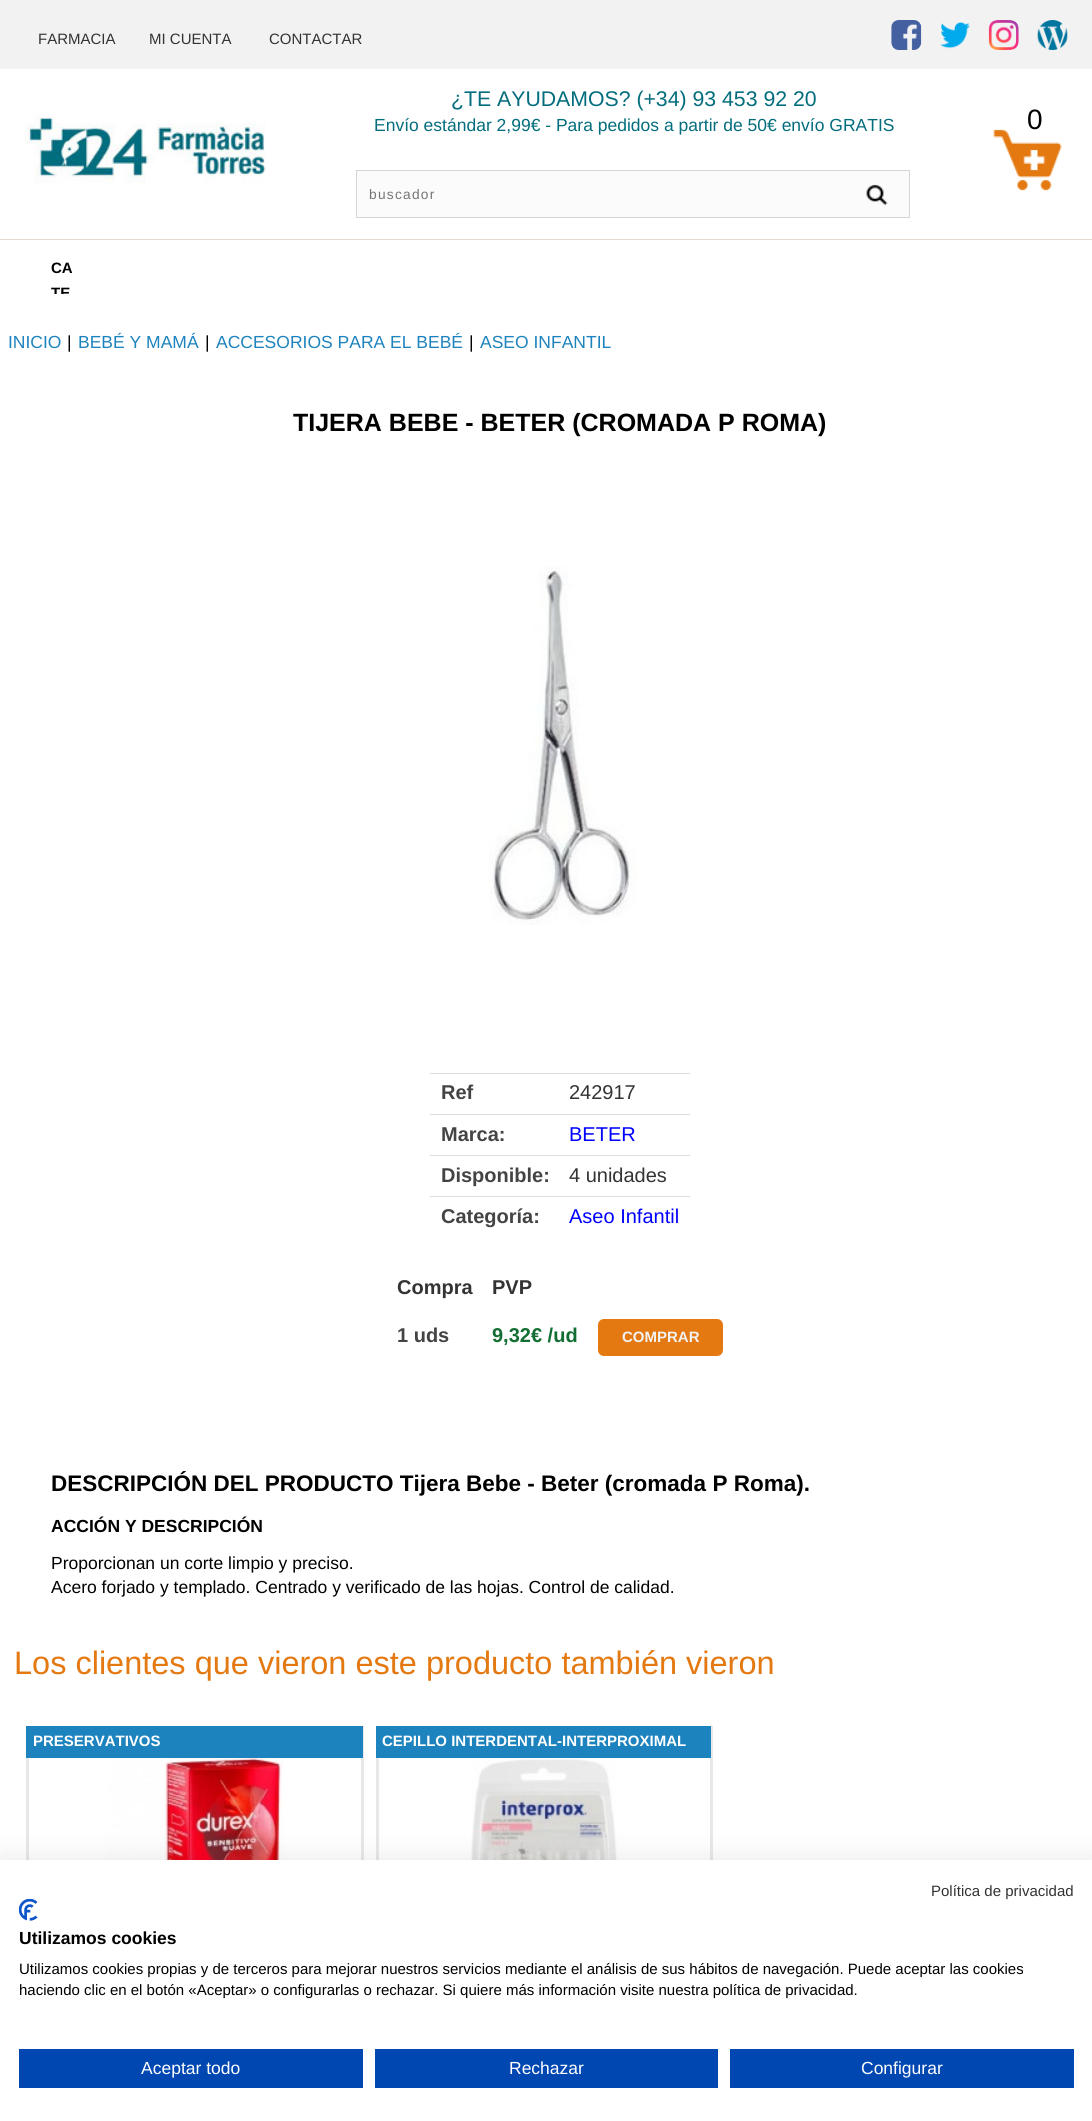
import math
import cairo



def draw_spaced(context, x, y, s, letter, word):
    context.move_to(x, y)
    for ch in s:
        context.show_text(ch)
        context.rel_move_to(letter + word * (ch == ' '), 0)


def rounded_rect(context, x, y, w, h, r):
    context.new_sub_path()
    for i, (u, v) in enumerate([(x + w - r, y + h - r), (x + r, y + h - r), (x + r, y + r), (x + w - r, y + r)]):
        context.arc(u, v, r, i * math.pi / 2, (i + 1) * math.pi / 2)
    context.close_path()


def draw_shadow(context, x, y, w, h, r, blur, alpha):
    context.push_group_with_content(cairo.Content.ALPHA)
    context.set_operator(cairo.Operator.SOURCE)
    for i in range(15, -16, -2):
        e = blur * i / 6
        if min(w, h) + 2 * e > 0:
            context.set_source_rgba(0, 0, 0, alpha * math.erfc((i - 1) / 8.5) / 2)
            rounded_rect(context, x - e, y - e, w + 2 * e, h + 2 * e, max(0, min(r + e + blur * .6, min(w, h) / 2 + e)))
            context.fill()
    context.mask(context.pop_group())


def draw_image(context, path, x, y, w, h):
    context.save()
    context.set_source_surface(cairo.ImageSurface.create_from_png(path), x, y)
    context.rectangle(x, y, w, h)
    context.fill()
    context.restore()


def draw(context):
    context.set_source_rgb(1, 1, 1)
    context.paint()
    context.set_source_rgb(242 / 255, 242 / 255, 242 / 255)
    context.rectangle(0, 0, 1092, 69)
    context.fill()
    draw_image(context, "images/1.png", 891, 20, 31, 30)
    draw_image(context, "images/2.png", 940, 22, 30, 27)
    draw_image(context, "images/3.png", 988, 20, 31, 30)
    draw_image(context, "images/4.png", 1037, 20, 31, 30)
    draw_image(context, "images/5.png", 25, 114, 241, 70)
    context.set_source_rgb(251 / 255, 251 / 255, 251 / 255)
    context.rectangle(356.5, 170.5, 553, 47)
    context.fill_preserve()
    context.set_source_rgb(214 / 255, 212 / 255, 212 / 255)
    context.set_line_width(1)
    context.stroke()
    draw_image(context, "images/6.png", 866, 184, 22, 22)
    context.set_source_rgb(227 / 255, 217 / 255, 204 / 255)
    context.rectangle(0, 239, 1092, 1)
    context.fill()
    draw_image(context, "images/8.png", 489, 566, 148, 359)
    context.set_source_rgb(221 / 255, 221 / 255, 221 / 255)
    context.rectangle(430, 1073, 260, 1)
    context.fill()
    context.rectangle(430, 1114, 260, 1)
    context.fill()
    context.rectangle(430, 1155, 260, 1)
    context.fill()
    context.rectangle(430, 1196, 260, 1)
    context.fill()
    context.set_source_rgb(228 / 255, 121 / 255, 17 / 255)
    rounded_rect(context, 598, 1319, 125, 37, 6)
    context.fill()
    context.rectangle(27.5, 1727.5, 335, 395)
    context.set_source_rgb(232 / 255, 232 / 255, 232 / 255)
    context.set_line_width(3)
    context.stroke()
    context.set_source_rgb(29 / 255, 131 / 255, 190 / 255)
    context.rectangle(26, 1726, 337, 32)
    context.fill()
    draw_image(context, "images/9.png", 107, 1758, 177, 102)
    context.rectangle(377.5, 1727.5, 334, 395)
    context.set_source_rgb(232 / 255, 232 / 255, 232 / 255)
    context.stroke()
    context.set_source_rgb(29 / 255, 131 / 255, 190 / 255)
    context.rectangle(376, 1726, 335, 32)
    context.fill()
    draw_image(context, "images/10.png", 471, 1759, 147, 101)
    context.set_source_rgb(0, 0, 0)
    draw_shadow(context, 0, 1860, 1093, 261, 0, 15, 0.1)
    context.set_source_rgb(1, 1, 1)
    context.rectangle(0, 1860, 1092, 261)
    context.fill()
    draw_image(context, "images/11.png", 19, 1899, 19, 22)
    context.set_source_rgb(0, 71 / 255, 178 / 255)
    context.rectangle(19, 2049, 344, 39)
    context.fill()
    context.rectangle(375, 2049, 343, 39)
    context.fill()
    context.rectangle(730, 2049, 344, 39)
    context.fill()
    context.select_font_face("Liberation Sans")
    context.set_font_size(15)
    context.set_source_rgb(51 / 255, 51 / 255, 51 / 255)
    context.move_to(38, 44)
    context.show_text("FARMACIA")
    context.move_to(149, 44)
    context.show_text("MI CUENTA")
    context.move_to(269, 44)
    context.show_text("CONTACTAR")
    context.set_font_size(21.25)
    context.set_source_rgb(3 / 255, 109 / 255, 125 / 255)
    context.move_to(451, 106)
    context.show_text("¿TE AYUDAMOS? (+34) 93 453 92 20")
    context.set_font_size(17.5)
    context.move_to(374, 131)
    context.show_text("Envío estándar 2,99€ - Para pedidos a partir de 50€ envío GRATIS")
    context.set_font_size(13.75)
    context.set_source_rgb(117 / 255, 117 / 255, 117 / 255)
    draw_spaced(context, 369, 199, "buscador", 1.25, 0)
    context.set_font_size(28)
    context.set_source_rgb(0, 0, 0)
    context.move_to(1027, 129)
    context.show_text("0")
    draw_image(context, "images/7.png", 993, 129, 69, 62)
    context.select_font_face("Liberation Sans", cairo.FontSlant.NORMAL, cairo.FontWeight.BOLD)
    context.set_font_size(15)
    context.move_to(51, 273)
    context.show_text("CA")
    context.save()
    context.rectangle(44, 254, 44, 40)
    context.clip()
    context.move_to(51, 298)
    context.show_text("TE")
    context.restore()
    context.select_font_face("Liberation Sans")
    context.set_font_size(17.5)
    context.set_source_rgb(29 / 255, 131 / 255, 190 / 255)
    context.move_to(8, 348)
    context.show_text("INICIO")
    context.set_source_rgb(0, 0, 0)
    context.move_to(67, 348)
    context.show_text("|")
    context.set_source_rgb(29 / 255, 131 / 255, 190 / 255)
    context.move_to(78, 348)
    context.show_text("BEBÉ Y MAMÁ")
    context.set_source_rgb(0, 0, 0)
    context.move_to(205, 348)
    context.show_text("|")
    context.set_source_rgb(29 / 255, 131 / 255, 190 / 255)
    context.move_to(216, 348)
    context.show_text("ACCESORIOS PARA EL BEBÉ")
    context.set_source_rgb(0, 0, 0)
    context.move_to(469, 348)
    context.show_text("|")
    context.set_source_rgb(29 / 255, 131 / 255, 190 / 255)
    context.move_to(480, 348)
    context.show_text("ASEO INFANTIL")
    context.select_font_face("Liberation Sans", cairo.FontSlant.NORMAL, cairo.FontWeight.BOLD)
    context.set_font_size(25)
    context.set_source_rgb(0, 0, 0)
    context.move_to(293, 431)
    context.show_text("TIJERA BEBE - BETER (CROMADA P ROMA)")
    context.set_font_size(20)
    context.set_source_rgb(68 / 255, 68 / 255, 68 / 255)
    context.move_to(441, 1099)
    context.show_text("Ref")
    context.select_font_face("Liberation Sans")
    context.set_source_rgb(51 / 255, 51 / 255, 51 / 255)
    context.move_to(569, 1099)
    context.show_text("242917")
    context.select_font_face("Liberation Sans", cairo.FontSlant.NORMAL, cairo.FontWeight.BOLD)
    context.set_source_rgb(68 / 255, 68 / 255, 68 / 255)
    context.move_to(441, 1141)
    context.show_text("Marca:")
    context.select_font_face("Liberation Sans")
    context.set_source_rgb(0, 0, 1)
    context.move_to(569, 1141)
    context.show_text("BETER")
    context.select_font_face("Liberation Sans", cairo.FontSlant.NORMAL, cairo.FontWeight.BOLD)
    context.set_source_rgb(68 / 255, 68 / 255, 68 / 255)
    context.move_to(441, 1182)
    context.show_text("Disponible:")
    context.select_font_face("Liberation Sans")
    context.set_source_rgb(51 / 255, 51 / 255, 51 / 255)
    context.move_to(569, 1182)
    context.show_text("4 unidades")
    context.select_font_face("Liberation Sans", cairo.FontSlant.NORMAL, cairo.FontWeight.BOLD)
    context.set_source_rgb(68 / 255, 68 / 255, 68 / 255)
    context.move_to(441, 1223)
    context.show_text("Categoría:")
    context.select_font_face("Liberation Sans")
    context.set_source_rgb(0, 0, 1)
    context.move_to(569, 1223)
    context.show_text("Aseo Infantil")
    context.select_font_face("Liberation Sans", cairo.FontSlant.NORMAL, cairo.FontWeight.BOLD)
    context.set_source_rgb(51 / 255, 51 / 255, 51 / 255)
    context.move_to(397, 1294)
    context.show_text("Compra")
    context.move_to(492, 1294)
    context.show_text("PVP")
    context.set_source_rgb(68 / 255, 68 / 255, 68 / 255)
    context.move_to(397, 1342)
    context.show_text("1 uds")
    context.set_source_rgb(19 / 255, 110 / 255, 51 / 255)
    context.move_to(492, 1342)
    context.show_text("9,32€ /ud")
    context.set_font_size(15)
    context.set_source_rgb(242 / 255, 242 / 255, 242 / 255)
    context.move_to(622, 1342)
    context.show_text("COMPRAR")
    context.set_font_size(22.5)
    context.set_source_rgb(0, 0, 0)
    context.move_to(51, 1491)
    context.show_text("DESCRIPCIÓN DEL PRODUCTO Tijera Bebe - Beter (cromada P Roma).")
    context.set_font_size(17.5)
    context.move_to(51, 1532)
    context.show_text("ACCIÓN Y DESCRIPCIÓN")
    context.select_font_face("Liberation Sans")
    context.move_to(51, 1569)
    context.show_text("Proporcionan un corte limpio y preciso.")
    context.move_to(51, 1593)
    context.show_text("Acero forjado y templado. Centrado y verificado de las hojas. Control de calidad.")
    context.set_font_size(32.5)
    context.set_source_rgb(228 / 255, 121 / 255, 17 / 255)
    context.move_to(14, 1674)
    context.show_text("Los clientes que vieron este producto también vieron")
    context.select_font_face("Liberation Sans", cairo.FontSlant.NORMAL, cairo.FontWeight.BOLD)
    context.set_font_size(15)
    context.set_source_rgb(1, 1, 1)
    context.move_to(33, 1746)
    context.show_text("PRESERVATIVOS")
    context.move_to(382, 1746)
    context.show_text("CEPILLO INTERDENTAL-INTERPROXIMAL")
    context.select_font_face("Liberation Sans")
    context.set_source_rgb(51 / 255, 51 / 255, 51 / 255)
    context.move_to(931, 1896)
    context.show_text("Política de privacidad")
    context.select_font_face("Liberation Sans", cairo.FontSlant.NORMAL, cairo.FontWeight.BOLD)
    context.set_font_size(17.5)
    context.set_source_rgb(0, 0, 0)
    context.move_to(19, 1944)
    context.show_text("Utilizamos cookies")
    context.select_font_face("Liberation Sans")
    context.set_font_size(15)
    context.move_to(19, 1974)
    context.show_text("Utilizamos cookies propias y de terceros para mejorar nuestros servicios mediante el análisis de sus hábitos de navegación. Puede aceptar las cookies")
    context.move_to(19, 1995)
    context.show_text("haciendo clic en el botón «Aceptar» o configurarlas o rechazar. Si quiere más información visite nuestra política de privacidad.")
    context.set_font_size(17.5)
    context.set_source_rgb(1, 1, 1)
    context.move_to(141, 2074)
    context.show_text("Aceptar todo")
    context.move_to(509, 2074)
    context.show_text("Rechazar")
    context.move_to(861, 2074)
    context.show_text("Configurar")


surface = cairo.ImageSurface(cairo.Format.RGB24, 1092, 2121)
context = cairo.Context(surface)
options = cairo.FontOptions()
options.set_hint_metrics(cairo.HintMetrics.OFF)
options.set_hint_style(cairo.HintStyle.NONE)
context.set_font_options(options)
context.set_miter_limit(4)
draw(context)
surface.write_to_png("out.png")
